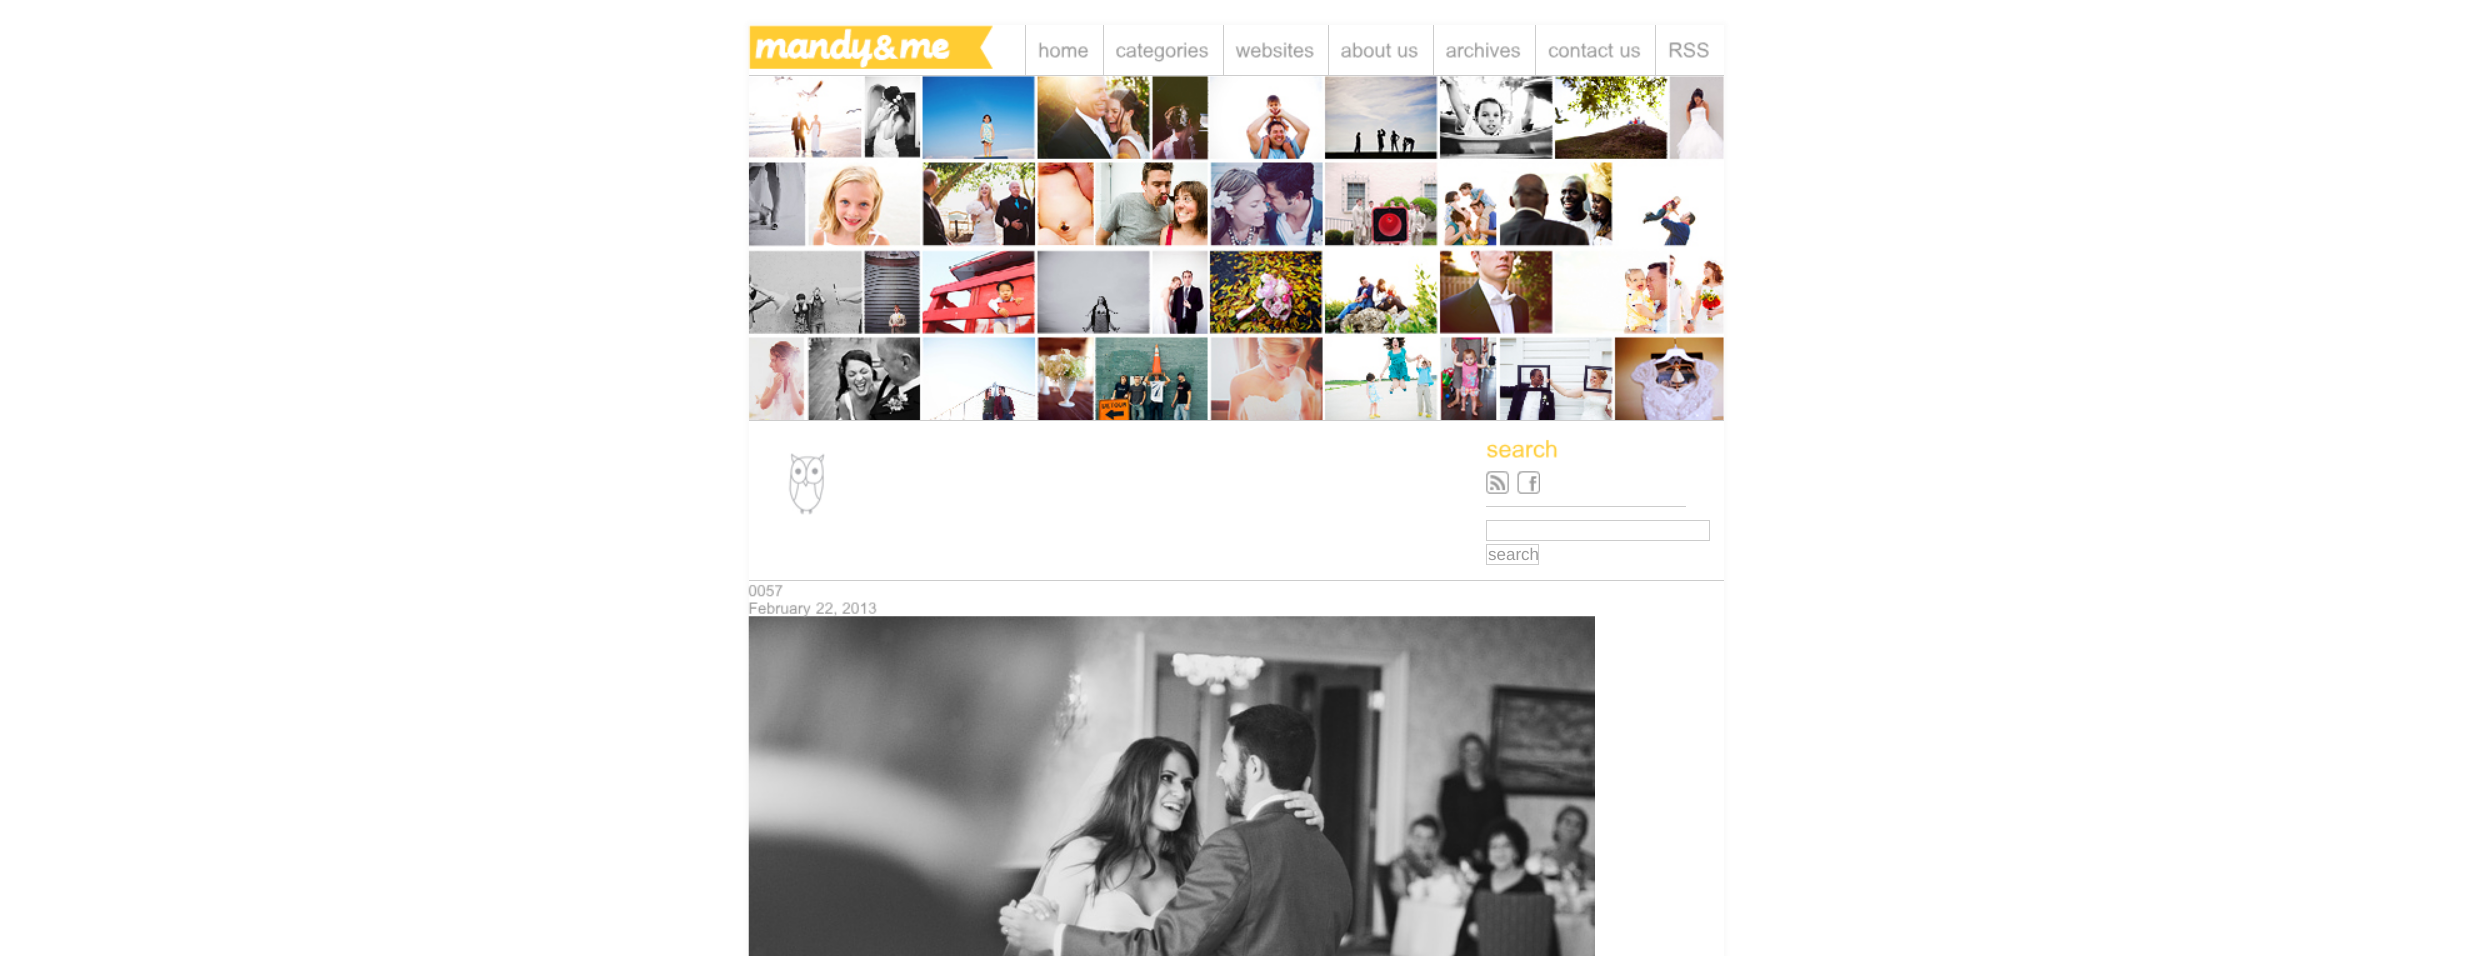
import math
import cairo



def rounded_rect(context, x, y, w, h, r):
    context.new_sub_path()
    for i, (u, v) in enumerate([(x + w - r, y + h - r), (x + r, y + h - r), (x + r, y + r), (x + w - r, y + r)]):
        context.arc(u, v, r, i * math.pi / 2, (i + 1) * math.pi / 2)
    context.close_path()


def draw_shadow(context, x, y, w, h, r, blur, alpha):
    context.push_group_with_content(cairo.Content.ALPHA)
    context.set_operator(cairo.Operator.SOURCE)
    for i in range(15, -16, -2):
        e = blur * i / 6
        if min(w, h) + 2 * e > 0:
            context.set_source_rgba(0, 0, 0, alpha * math.erfc((i - 1) / 8.5) / 2)
            rounded_rect(context, x - e, y - e, w + 2 * e, h + 2 * e, max(0, min(r + e + blur * .6, min(w, h) / 2 + e)))
            context.fill()
    context.mask(context.pop_group())


def draw_image(context, path, x, y, w, h):
    context.save()
    context.set_source_surface(cairo.ImageSurface.create_from_png(path), x, y)
    context.rectangle(x, y, w, h)
    context.fill()
    context.restore()


def draw(context):
    context.set_source_rgb(1, 1, 1)
    context.paint()
    context.set_source_rgb(0, 0, 0)
    draw_shadow(context, 749, 25, 975, 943, 0, 4, 0.05)
    context.set_source_rgb(1, 1, 1)
    context.rectangle(749, 25, 975, 931)
    context.fill()
    context.set_source_rgb(204 / 255, 204 / 255, 204 / 255)
    context.rectangle(749, 75, 975, 1)
    context.fill()
    draw_image(context, "images/1.png", 748, 25, 245, 44)
    context.rectangle(1025, 25, 1, 50)
    context.fill()
    draw_image(context, "images/2.png", 1038, 42, 51, 16)
    context.rectangle(1103, 25, 1, 50)
    context.fill()
    draw_image(context, "images/3.png", 1116, 42, 93, 21)
    context.rectangle(1223, 25, 1, 50)
    context.fill()
    draw_image(context, "images/4.png", 1235, 42, 79, 16)
    context.rectangle(1328, 25, 1, 50)
    context.fill()
    draw_image(context, "images/5.png", 1341, 42, 51, 16)
    draw_image(context, "images/6.png", 1397, 46, 21, 12)
    context.rectangle(1433, 25, 1, 50)
    context.fill()
    draw_image(context, "images/7.png", 1446, 42, 75, 16)
    context.rectangle(1535, 25, 1, 50)
    context.fill()
    draw_image(context, "images/8.png", 1548, 42, 66, 16)
    draw_image(context, "images/9.png", 1620, 46, 21, 12)
    context.rectangle(1655, 25, 1, 50)
    context.fill()
    draw_image(context, "images/10.png", 1668, 42, 41, 16)
    draw_image(context, "images/11.png", 748, 76, 976, 344)
    context.rectangle(749, 420, 975, 1)
    context.fill()
    context.rectangle(749, 580, 975, 1)
    context.fill()
    draw_image(context, "images/12.png", 788, 453, 37, 62)
    draw_image(context, "images/13.png", 1486, 439, 72, 19)
    draw_image(context, "images/14.png", 1486, 471, 23, 23)
    draw_image(context, "images/15.png", 1517, 471, 23, 23)
    context.rectangle(1486, 506, 200, 1)
    context.fill()
    context.rectangle(1486.5, 520.5, 223, 20)
    context.set_line_width(1)
    context.stroke()
    context.rectangle(1486.5, 544.5, 52, 20)
    context.stroke()
    draw_image(context, "images/16.png", 748, 584, 35, 13)
    draw_image(context, "images/20.png", 748, 616, 847, 340)
    draw_image(context, "images/17.png", 748, 602, 63, 16)
    draw_image(context, "images/18.png", 816, 602, 21, 14)
    draw_image(context, "images/19.png", 842, 602, 35, 12)
    context.select_font_face("Liberation Sans")
    context.set_font_size(17)
    context.set_source_rgb(153 / 255, 153 / 255, 153 / 255)
    context.move_to(1488, 560)
    context.show_text("search")


surface = cairo.ImageSurface(cairo.Format.RGB24, 2472, 956)
context = cairo.Context(surface)
options = cairo.FontOptions()
options.set_hint_metrics(cairo.HintMetrics.OFF)
options.set_hint_style(cairo.HintStyle.NONE)
context.set_font_options(options)
context.set_miter_limit(4)
draw(context)
surface.write_to_png("out.png")
